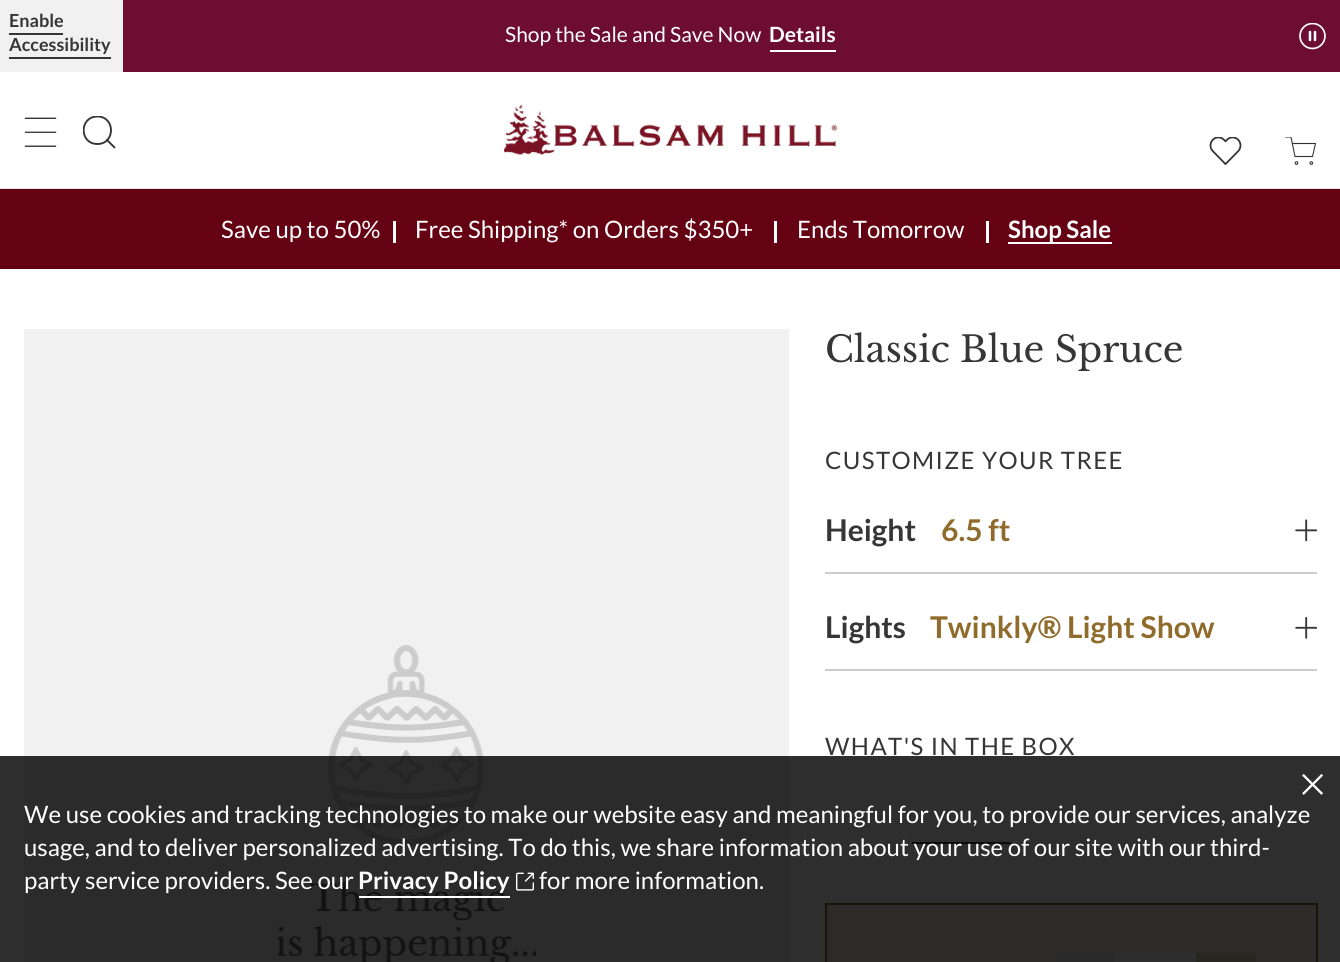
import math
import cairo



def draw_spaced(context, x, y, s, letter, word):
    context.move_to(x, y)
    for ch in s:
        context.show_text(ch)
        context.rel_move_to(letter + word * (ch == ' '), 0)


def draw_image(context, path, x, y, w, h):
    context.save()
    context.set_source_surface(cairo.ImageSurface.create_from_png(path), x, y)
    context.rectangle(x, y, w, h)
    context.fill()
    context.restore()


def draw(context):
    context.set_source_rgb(1, 1, 1)
    context.paint()
    context.set_source_rgb(241 / 255, 241 / 255, 241 / 255)
    context.rectangle(0, 0, 123, 72)
    context.fill()
    context.set_source_rgb(54 / 255, 54 / 255, 54 / 255)
    context.rectangle(9, 33, 54, 2)
    context.fill()
    context.rectangle(9, 57, 102, 2)
    context.fill()
    context.set_source_rgb(109 / 255, 13 / 255, 49 / 255)
    context.rectangle(123, 0, 1217, 72)
    context.fill()
    context.set_source_rgb(1, 1, 1)
    context.rectangle(770, 50, 66, 2)
    context.fill()
    context.save()
    context.rectangle(1299, 23, 27, 27)
    context.clip()
    context.arc(1312.5, 36, 12.5, 0, 2 * math.pi)
    context.set_line_width(1.7)
    context.stroke()
    context.restore()
    context.new_path()
    context.move_to(1310, 40)
    context.line_to(1310, 32)
    context.move_to(1315, 40)
    context.line_to(1315, 32)
    context.set_line_width(2.5)
    context.set_line_cap(cairo.LineCap.ROUND)
    context.set_line_join(cairo.LineJoin.ROUND)
    context.stroke()
    context.set_source_rgb(227 / 255, 224 / 255, 224 / 255)
    context.rectangle(0, 188, 1340, 1)
    context.fill()
    draw_image(context, "images/1.png", 24, 117, 33, 30)
    context.save()
    context.rectangle(83, 116, 33, 33)
    context.clip()
    context.new_path()
    context.move_to(97.5, 144)
    context.curve_to(115.5, 144, 115.5, 116.5, 97.5, 116.5)
    context.curve_to(79, 116.5, 79, 144, 97.5, 144)
    context.close_path()
    context.set_source_rgb(53 / 255, 53 / 255, 53 / 255)
    context.set_line_width(1.9)
    context.stroke()
    context.restore()
    context.new_path()
    context.move_to(114.5, 147.5)
    context.line_to(107, 140)
    context.set_source_rgb(53 / 255, 53 / 255, 53 / 255)
    context.set_line_width(1.9)
    context.stroke()
    draw_image(context, "images/2.png", 504, 105, 333, 50)
    draw_image(context, "images/3.png", 1209, 137, 33, 28)
    context.save()
    context.rectangle(1284, 137, 33, 28)
    context.clip()
    context.new_path()
    context.move_to(1285.5, 137)
    context.line_to(1291, 137)
    context.line_to(1295, 156.5)
    context.line_to(1312.5, 156.5)
    context.line_to(1315.5, 143.5)
    context.line_to(1292.5, 143.5)
    context.set_source_rgb(52 / 255, 52 / 255, 52 / 255)
    context.set_line_width(1.1)
    context.stroke()
    context.restore()
    context.arc(1296.5, 163.1, 1.3, 0, 2 * math.pi)
    context.set_source_rgb(52 / 255, 52 / 255, 52 / 255)
    context.set_line_width(1.1)
    context.set_line_cap(cairo.LineCap.BUTT)
    context.set_line_join(cairo.LineJoin.MITER)
    context.stroke()
    context.arc(1311.3, 163.1, 1.3, 0, 2 * math.pi)
    context.stroke()
    context.set_source_rgb(100 / 255, 1 / 255, 18 / 255)
    context.rectangle(0, 189, 1340, 80)
    context.fill()
    context.set_source_rgb(1, 1, 1)
    context.rectangle(393, 221, 3, 22)
    context.fill()
    context.rectangle(774, 221, 3, 22)
    context.fill()
    context.rectangle(986, 221, 3, 22)
    context.fill()
    context.rectangle(1008, 242, 104, 2)
    context.fill()
    context.set_source_rgb(241 / 255, 241 / 255, 241 / 255)
    context.rectangle(24, 329, 765, 633)
    context.fill()
    draw_image(context, "images/4.png", 278, 645, 258, 317)
    context.set_source_rgb(204 / 255, 204 / 255, 204 / 255)
    context.rectangle(825, 572, 492, 2)
    context.fill()
    draw_image(context, "images/5.png", 1295, 519, 22, 23)
    context.rectangle(825, 669, 492, 2)
    context.fill()
    draw_image(context, "images/6.png", 1295, 617, 22, 22)
    context.set_source_rgb(54 / 255, 54 / 255, 54 / 255)
    context.rectangle(912, 842, 99, 2)
    context.fill()
    context.set_source_rgb(244 / 255, 240 / 255, 234 / 255)
    context.rectangle(827, 905, 489, 57)
    context.fill()
    context.set_source_rgb(143 / 255, 108 / 255, 44 / 255)
    context.rectangle(825, 903, 492, 2)
    context.fill()
    context.rectangle(1316, 903, 2, 59)
    context.fill()
    context.rectangle(825, 903, 2, 59)
    context.fill()
    context.set_source_rgb(234 / 255, 234 / 255, 234 / 255)
    context.rectangle(1055, 953, 60, 9)
    context.fill()
    context.set_source_rgb(1, 1, 1)
    context.rectangle(1116, 954, 79, 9)
    context.fill_preserve()
    context.set_line_width(2)
    context.stroke()
    context.set_source_rgb(224 / 255, 210 / 255, 184 / 255)
    context.rectangle(1196, 953, 60, 9)
    context.fill()
    context.set_source_rgba(0, 0, 0, 0.82)
    context.rectangle(0, 756, 1340, 206)
    context.fill()
    draw_image(context, "images/7.png", 1302, 774, 21, 21)
    context.set_source_rgb(1, 1, 1)
    context.rectangle(359, 896, 151, 2)
    context.fill()
    draw_image(context, "images/8.png", 516, 872, 18, 19)
    context.select_font_face("Lato", cairo.FontSlant.NORMAL, cairo.FontWeight.BOLD)
    context.set_font_size(18)
    context.set_source_rgb(54 / 255, 54 / 255, 54 / 255)
    context.move_to(9, 27)
    context.show_text("Enable")
    context.move_to(9, 51)
    context.show_text("Accessibility")
    context.select_font_face("Lato")
    context.set_font_size(21)
    context.set_source_rgb(1, 1, 1)
    context.move_to(505, 42)
    context.show_text("Shop the Sale and Save Now")
    context.select_font_face("Lato", cairo.FontSlant.NORMAL, cairo.FontWeight.BOLD)
    context.move_to(769, 42)
    context.show_text("Details")
    context.select_font_face("Lato")
    context.set_font_size(24)
    context.move_to(221, 238)
    context.show_text("Save up to 50%")
    context.move_to(415, 238)
    context.show_text("Free Shipping* on Orders $350+")
    context.move_to(797, 238)
    context.show_text("Ends Tomorrow")
    context.select_font_face("Lato", cairo.FontSlant.NORMAL, cairo.FontWeight.BOLD)
    context.move_to(1008, 238)
    context.show_text("Shop Sale")
    context.select_font_face("Libre Baskerville")
    context.set_font_size(36)
    context.set_source_rgb(54 / 255, 54 / 255, 54 / 255)
    context.move_to(825, 362)
    context.show_text("Classic Blue Spruce")
    context.select_font_face("Lato")
    context.set_font_size(24)
    draw_spaced(context, 825, 469, "CUSTOMIZE YOUR TREE", 1.4, 0)
    context.select_font_face("Lato", cairo.FontSlant.NORMAL, cairo.FontWeight.BOLD)
    context.set_font_size(30)
    context.move_to(825, 541)
    context.show_text("Height")
    context.set_source_rgb(143 / 255, 108 / 255, 44 / 255)
    context.move_to(941, 541)
    context.show_text("6.5 ft")
    context.set_source_rgb(54 / 255, 54 / 255, 54 / 255)
    context.move_to(825, 638)
    context.show_text("Lights")
    context.set_source_rgb(143 / 255, 108 / 255, 44 / 255)
    context.move_to(930, 638)
    context.show_text("Twinkly® Light Show")
    context.select_font_face("Lato")
    context.set_font_size(24)
    context.set_source_rgb(54 / 255, 54 / 255, 54 / 255)
    draw_spaced(context, 825, 755, "WHAT'S IN THE BOX", 1.4, 0)
    context.set_source_rgb(1, 1, 1)
    context.move_to(24, 823)
    context.show_text("We use cookies and tracking technologies to make our website easy and meaningful for you, to provide our services, analyze")
    context.move_to(24, 856)
    context.show_text("usage, and to deliver personalized advertising. To do this, we share information about your use of our site with our third-")
    context.move_to(24, 889)
    context.show_text("party service providers. See our")
    context.select_font_face("Lato", cairo.FontSlant.NORMAL, cairo.FontWeight.BOLD)
    context.move_to(358, 889)
    context.show_text("Privacy Policy")
    context.select_font_face("Lato")
    context.move_to(539, 889)
    context.show_text("for more information.")


surface = cairo.ImageSurface(cairo.Format.RGB24, 1340, 962)
context = cairo.Context(surface)
options = cairo.FontOptions()
options.set_hint_metrics(cairo.HintMetrics.OFF)
options.set_hint_style(cairo.HintStyle.NONE)
context.set_font_options(options)
context.set_miter_limit(4)
draw(context)
surface.write_to_png("out.png")
